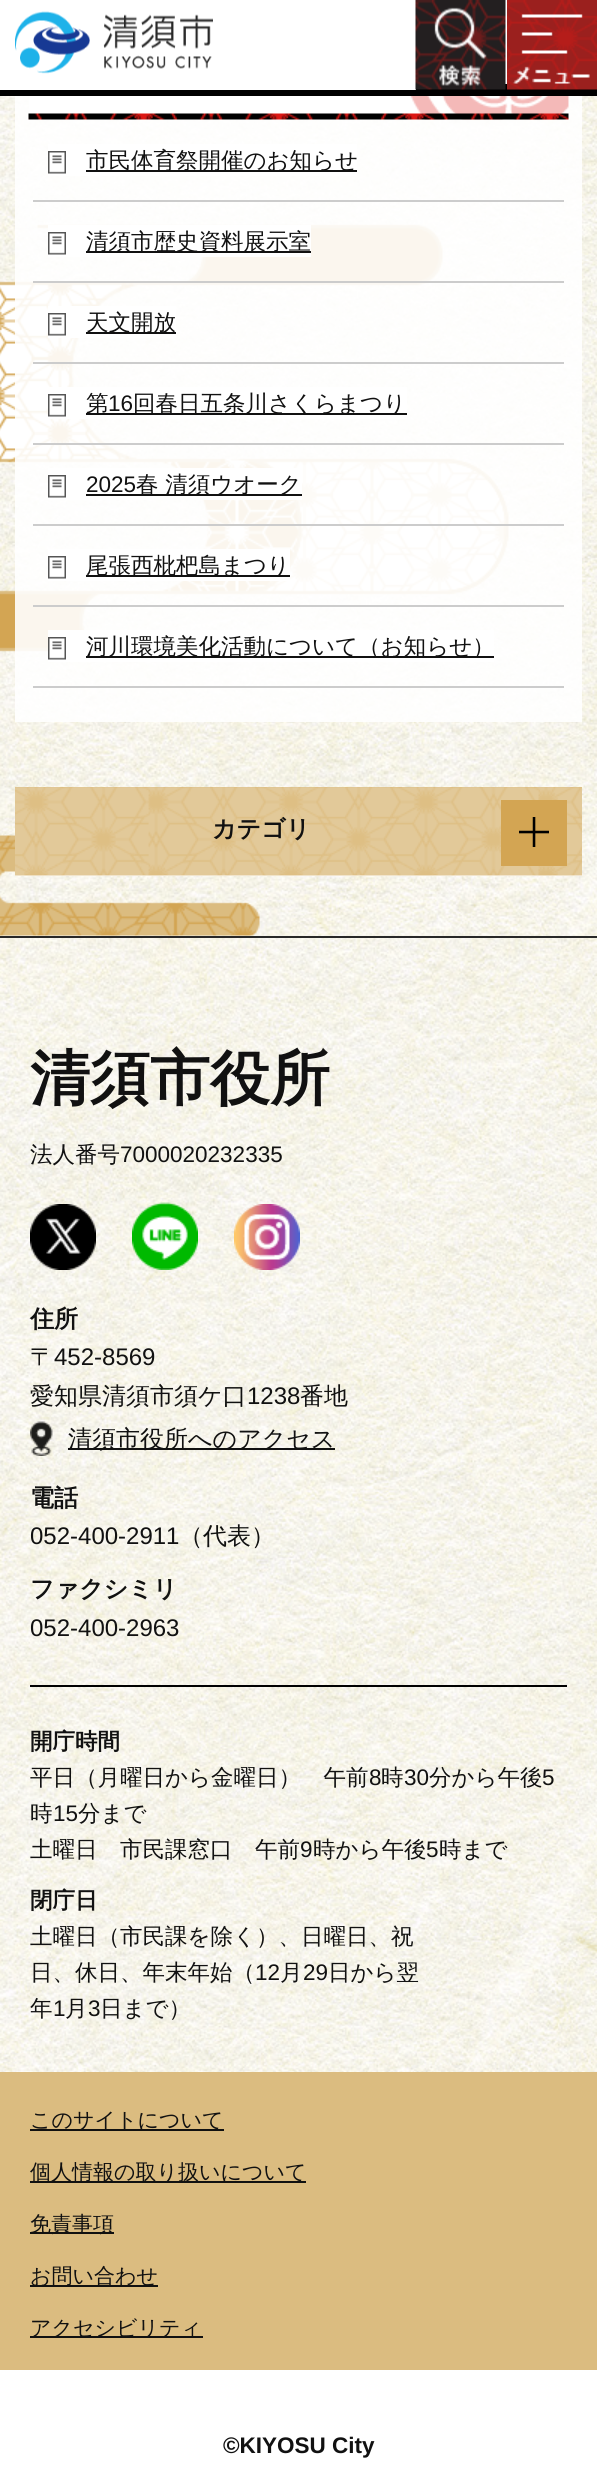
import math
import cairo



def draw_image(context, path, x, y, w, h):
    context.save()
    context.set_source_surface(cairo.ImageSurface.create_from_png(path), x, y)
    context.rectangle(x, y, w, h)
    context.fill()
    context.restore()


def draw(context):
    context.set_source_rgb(1, 1, 1)
    context.paint()
    context.set_source_rgb(0, 0, 0)
    context.rectangle(0, 90, 597, 6)
    context.fill()
    draw_image(context, "images/1.png", 15, 11, 198, 63)
    context.rectangle(416, 84, 181, 6)
    context.fill()
    draw_image(context, "images/2.png", 415, 0, 91, 90)
    draw_image(context, "images/3.png", 507, 0, 90, 90)
    draw_image(context, "images/4.png", 0, 96, 597, 840)
    context.set_source_rgba(1, 1, 1, 0.9)
    context.rectangle(15, 96, 567, 626)
    context.fill()
    context.set_source_rgb(1, 1, 1)
    context.rectangle(29, 96, 540, 24)
    context.fill()
    draw_image(context, "images/5.png", 28, 96, 541, 24)
    context.set_source_rgb(204 / 255, 204 / 255, 204 / 255)
    context.rectangle(33, 200, 531, 2)
    context.fill()
    context.set_source_rgb(1, 1, 1)
    context.rectangle(48, 144, 309, 32)
    context.fill()
    draw_image(context, "images/6.png", 48, 151, 18, 23)
    context.set_source_rgb(17 / 255, 17 / 255, 17 / 255)
    context.rectangle(86, 170, 271, 2)
    context.fill()
    context.set_source_rgb(204 / 255, 204 / 255, 204 / 255)
    context.rectangle(33, 281, 531, 2)
    context.fill()
    context.set_source_rgb(1, 1, 1)
    context.rectangle(48, 225, 263, 32)
    context.fill()
    draw_image(context, "images/6.png", 48, 232, 18, 23)
    context.set_source_rgb(17 / 255, 17 / 255, 17 / 255)
    context.rectangle(86, 251, 225, 2)
    context.fill()
    context.set_source_rgb(204 / 255, 204 / 255, 204 / 255)
    context.rectangle(33, 362, 531, 2)
    context.fill()
    context.set_source_rgb(1, 1, 1)
    context.rectangle(48, 306, 128, 32)
    context.fill()
    draw_image(context, "images/6.png", 48, 313, 18, 23)
    context.set_source_rgb(17 / 255, 17 / 255, 17 / 255)
    context.rectangle(86, 332, 90, 2)
    context.fill()
    context.set_source_rgb(204 / 255, 204 / 255, 204 / 255)
    context.rectangle(33, 443, 531, 2)
    context.fill()
    context.set_source_rgb(1, 1, 1)
    context.rectangle(48, 387, 359, 32)
    context.fill()
    draw_image(context, "images/6.png", 48, 394, 18, 23)
    context.set_source_rgb(17 / 255, 17 / 255, 17 / 255)
    context.rectangle(86, 413, 321, 2)
    context.fill()
    context.set_source_rgb(204 / 255, 204 / 255, 204 / 255)
    context.rectangle(33, 524, 531, 2)
    context.fill()
    context.set_source_rgb(1, 1, 1)
    context.rectangle(48, 468, 254, 32)
    context.fill()
    draw_image(context, "images/6.png", 48, 475, 18, 23)
    context.set_source_rgb(17 / 255, 17 / 255, 17 / 255)
    context.rectangle(86, 494, 216, 2)
    context.fill()
    context.set_source_rgb(204 / 255, 204 / 255, 204 / 255)
    context.rectangle(33, 605, 531, 2)
    context.fill()
    context.set_source_rgb(1, 1, 1)
    context.rectangle(48, 549, 242, 32)
    context.fill()
    draw_image(context, "images/6.png", 48, 556, 18, 23)
    context.set_source_rgb(17 / 255, 17 / 255, 17 / 255)
    context.rectangle(86, 575, 204, 2)
    context.fill()
    context.set_source_rgb(204 / 255, 204 / 255, 204 / 255)
    context.rectangle(33, 686, 531, 2)
    context.fill()
    context.set_source_rgb(1, 1, 1)
    context.rectangle(48, 630, 446, 32)
    context.fill()
    draw_image(context, "images/6.png", 48, 637, 18, 23)
    context.set_source_rgb(17 / 255, 17 / 255, 17 / 255)
    context.rectangle(86, 656, 408, 2)
    context.fill()
    context.set_source_rgb(1, 1, 1)
    context.rectangle(15, 788, 567, 88)
    context.fill()
    draw_image(context, "images/7.png", 15, 787, 567, 89)
    context.set_source_rgb(211 / 255, 165 / 255, 83 / 255)
    context.rectangle(501, 800, 66, 66)
    context.fill()
    draw_image(context, "images/8.png", 519, 817, 30, 30)
    draw_image(context, "images/9.png", 0, 935, 597, 1137)
    context.set_source_rgb(40 / 255, 40 / 255, 40 / 255)
    context.rectangle(0, 936, 597, 2)
    context.fill()
    draw_image(context, "images/10.png", 30, 1204, 66, 66)
    draw_image(context, "images/11.png", 132, 1202, 66, 68)
    draw_image(context, "images/12.png", 234, 1204, 66, 66)
    context.set_source_rgb(0, 0, 0)
    context.rectangle(30, 1685, 537, 2)
    context.fill()
    draw_image(context, "images/13.png", 30, 1421, 23, 35)
    context.set_source_rgb(17 / 255, 17 / 255, 17 / 255)
    context.rectangle(68, 1448, 267, 2)
    context.fill()
    context.set_source_rgb(219 / 255, 188 / 255, 128 / 255)
    context.rectangle(0, 2072, 597, 298)
    context.fill()
    context.set_source_rgb(17 / 255, 17 / 255, 17 / 255)
    context.rectangle(30, 2129, 194, 2)
    context.fill()
    context.rectangle(30, 2181, 276, 2)
    context.fill()
    context.rectangle(30, 2232, 84, 2)
    context.fill()
    context.rectangle(30, 2285, 128, 2)
    context.fill()
    context.rectangle(30, 2336, 173, 2)
    context.fill()
    context.select_font_face("WenQuanYi Zen Hei Medium")
    context.set_font_size(22.5)
    context.move_to(86, 168)
    context.show_text("市民体育祭開催のお知らせ")
    context.move_to(86, 249)
    context.show_text("清須市歴史資料展示室")
    context.move_to(86, 330)
    context.show_text("天文開放")
    context.move_to(86, 411)
    context.show_text("第")
    context.select_font_face("Liberation Sans")
    context.move_to(108, 411)
    context.show_text("16")
    context.select_font_face("WenQuanYi Zen Hei Medium")
    context.move_to(133, 411)
    context.show_text("回春日五条川さくらまつり")
    context.select_font_face("Liberation Sans")
    context.move_to(86, 492)
    context.show_text("2025")
    context.select_font_face("WenQuanYi Zen Hei Medium")
    context.move_to(136, 492)
    context.show_text("春 清須ウオーク")
    context.move_to(86, 573)
    context.show_text("尾張西枇杷島まつり")
    context.move_to(86, 654)
    context.show_text("河川環境美化活動について（お知らせ）")
    context.select_font_face("WenQuanYi Zen Hei", cairo.FontSlant.NORMAL, cairo.FontWeight.BOLD)
    context.set_font_size(24)
    context.move_to(212, 837)
    context.show_text("カテゴリ")
    context.set_font_size(60)
    context.move_to(30, 1099)
    context.show_text("清須市役所")
    context.select_font_face("WenQuanYi Zen Hei Medium")
    context.set_font_size(22.5)
    context.move_to(30, 1162)
    context.show_text("法人番号")
    context.select_font_face("Liberation Sans")
    context.move_to(120, 1162)
    context.show_text("7000020232335")
    context.select_font_face("WenQuanYi Zen Hei", cairo.FontSlant.NORMAL, cairo.FontWeight.BOLD)
    context.set_font_size(24)
    context.move_to(30, 1327)
    context.show_text("住所")
    context.select_font_face("WenQuanYi Zen Hei Medium")
    context.move_to(30, 1365)
    context.show_text("〒")
    context.select_font_face("Liberation Sans")
    context.move_to(54, 1365)
    context.show_text("452-8569")
    context.select_font_face("WenQuanYi Zen Hei Medium")
    context.move_to(30, 1404)
    context.show_text("愛知県清須市須ケ口")
    context.select_font_face("Liberation Sans")
    context.move_to(247, 1404)
    context.show_text("1238")
    context.select_font_face("WenQuanYi Zen Hei Medium")
    context.move_to(300, 1404)
    context.show_text("番地")
    context.move_to(68, 1447)
    context.show_text("清須市役所へのアクセス")
    context.select_font_face("WenQuanYi Zen Hei", cairo.FontSlant.NORMAL, cairo.FontWeight.BOLD)
    context.move_to(30, 1506)
    context.show_text("電話")
    context.select_font_face("Liberation Sans")
    context.move_to(30, 1544)
    context.show_text("052-400-2911")
    context.select_font_face("WenQuanYi Zen Hei Medium")
    context.move_to(179, 1544)
    context.show_text("（代表）")
    context.select_font_face("WenQuanYi Zen Hei", cairo.FontSlant.NORMAL, cairo.FontWeight.BOLD)
    context.move_to(30, 1597)
    context.show_text("ファクシミリ")
    context.select_font_face("Liberation Sans")
    context.move_to(30, 1636)
    context.show_text("052-400-2963")
    context.select_font_face("WenQuanYi Zen Hei", cairo.FontSlant.NORMAL, cairo.FontWeight.BOLD)
    context.set_font_size(22.5)
    context.move_to(30, 1749)
    context.show_text("開庁時間")
    context.select_font_face("WenQuanYi Zen Hei Medium")
    context.move_to(30, 1785)
    context.show_text("平日（月曜日から金曜日）　午前")
    context.select_font_face("Liberation Sans")
    context.move_to(369, 1785)
    context.show_text("8")
    context.select_font_face("WenQuanYi Zen Hei Medium")
    context.move_to(381, 1785)
    context.show_text("時")
    context.select_font_face("Liberation Sans")
    context.move_to(404, 1785)
    context.show_text("30")
    context.select_font_face("WenQuanYi Zen Hei Medium")
    context.move_to(429, 1785)
    context.show_text("分から午後")
    context.select_font_face("Liberation Sans")
    context.move_to(542, 1785)
    context.show_text("5")
    context.select_font_face("WenQuanYi Zen Hei Medium")
    context.move_to(30, 1821)
    context.show_text("時")
    context.select_font_face("Liberation Sans")
    context.move_to(53, 1821)
    context.show_text("15")
    context.select_font_face("WenQuanYi Zen Hei Medium")
    context.move_to(78, 1821)
    context.show_text("分まで")
    context.move_to(30, 1857)
    context.show_text("土曜日　市民課窓口　午前")
    context.select_font_face("Liberation Sans")
    context.move_to(300, 1857)
    context.show_text("9")
    context.select_font_face("WenQuanYi Zen Hei Medium")
    context.move_to(313, 1857)
    context.show_text("時から午後")
    context.select_font_face("Liberation Sans")
    context.move_to(426, 1857)
    context.show_text("5")
    context.select_font_face("WenQuanYi Zen Hei Medium")
    context.move_to(439, 1857)
    context.show_text("時まで")
    context.select_font_face("WenQuanYi Zen Hei", cairo.FontSlant.NORMAL, cairo.FontWeight.BOLD)
    context.move_to(30, 1908)
    context.show_text("閉庁日")
    context.select_font_face("WenQuanYi Zen Hei Medium")
    context.move_to(30, 1944)
    context.show_text("土曜日（市民課を除く）、日曜日、祝")
    context.move_to(30, 1980)
    context.show_text("日、休日、年末年始（")
    context.select_font_face("Liberation Sans")
    context.move_to(255, 1980)
    context.show_text("12")
    context.select_font_face("WenQuanYi Zen Hei Medium")
    context.move_to(280, 1980)
    context.show_text("月")
    context.select_font_face("Liberation Sans")
    context.move_to(303, 1980)
    context.show_text("29")
    context.select_font_face("WenQuanYi Zen Hei Medium")
    context.move_to(328, 1980)
    context.show_text("日から翌")
    context.move_to(30, 2016)
    context.show_text("年")
    context.select_font_face("Liberation Sans")
    context.move_to(53, 2016)
    context.show_text("1")
    context.select_font_face("WenQuanYi Zen Hei Medium")
    context.move_to(65, 2016)
    context.show_text("月")
    context.select_font_face("Liberation Sans")
    context.move_to(88, 2016)
    context.show_text("3")
    context.select_font_face("WenQuanYi Zen Hei Medium")
    context.move_to(100, 2016)
    context.show_text("日まで）")
    context.set_font_size(21)
    context.move_to(30, 2127)
    context.show_text("このサイトについて")
    context.move_to(30, 2179)
    context.show_text("個人情報の取り扱いについて")
    context.move_to(30, 2231)
    context.show_text("免責事項")
    context.move_to(30, 2283)
    context.show_text("お問い合わせ")
    context.move_to(30, 2335)
    context.show_text("アクセシビリティ")
    context.select_font_face("Liberation Sans", cairo.FontSlant.NORMAL, cairo.FontWeight.BOLD)
    context.set_font_size(22.5)
    context.move_to(223, 2453)
    context.show_text("©KIYOSU City")


surface = cairo.ImageSurface(cairo.Format.RGB24, 597, 2488)
context = cairo.Context(surface)
options = cairo.FontOptions()
options.set_hint_metrics(cairo.HintMetrics.OFF)
options.set_hint_style(cairo.HintStyle.NONE)
context.set_font_options(options)
context.set_miter_limit(4)
draw(context)
surface.write_to_png("out.png")
